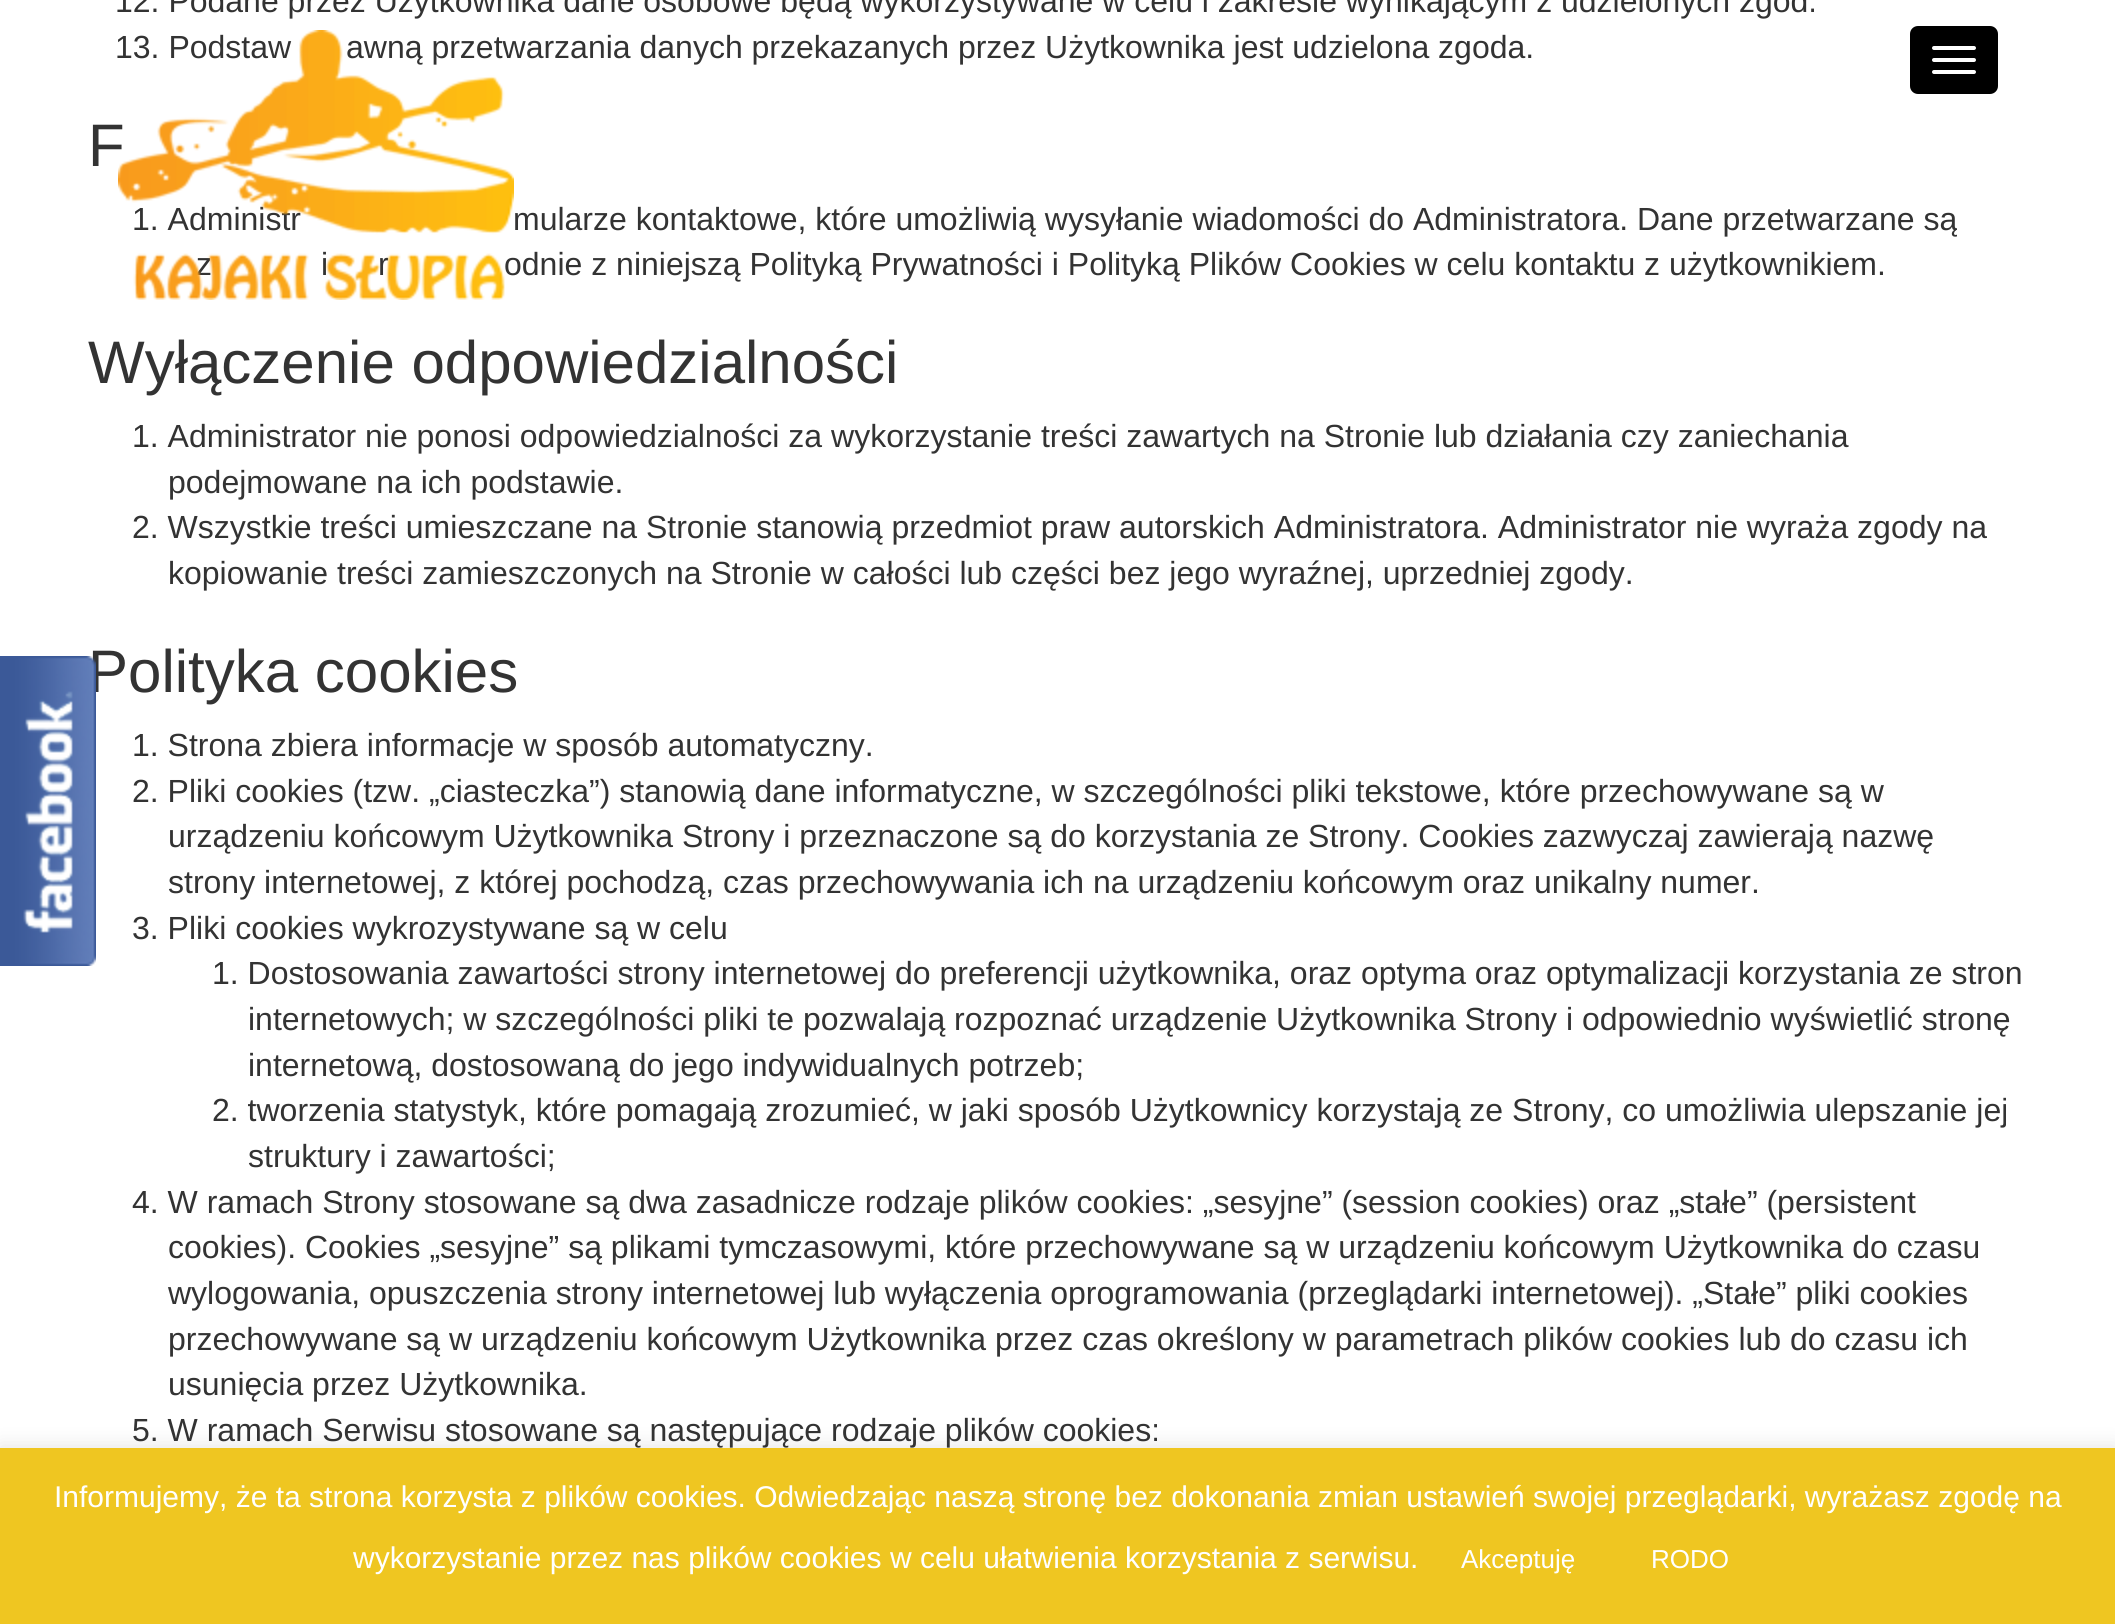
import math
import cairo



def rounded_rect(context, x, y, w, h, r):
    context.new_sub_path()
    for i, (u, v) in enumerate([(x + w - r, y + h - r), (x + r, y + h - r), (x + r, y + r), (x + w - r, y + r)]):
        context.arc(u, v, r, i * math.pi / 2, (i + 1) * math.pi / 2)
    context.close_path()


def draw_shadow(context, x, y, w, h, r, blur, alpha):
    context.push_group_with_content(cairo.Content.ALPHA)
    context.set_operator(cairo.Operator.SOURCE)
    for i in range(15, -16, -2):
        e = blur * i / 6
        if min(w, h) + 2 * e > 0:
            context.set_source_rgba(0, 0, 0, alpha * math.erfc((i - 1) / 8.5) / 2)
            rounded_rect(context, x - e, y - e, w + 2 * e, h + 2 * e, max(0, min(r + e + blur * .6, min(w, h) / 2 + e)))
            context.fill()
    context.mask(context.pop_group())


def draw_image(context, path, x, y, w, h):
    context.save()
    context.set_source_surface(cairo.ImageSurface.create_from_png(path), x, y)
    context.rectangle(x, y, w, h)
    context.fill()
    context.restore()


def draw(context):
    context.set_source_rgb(1, 1, 1)
    context.paint()
    context.set_source_rgb(0, 0, 0)
    rounded_rect(context, 1910, 26, 88, 68, 8)
    context.fill()
    context.set_source_rgb(1, 1, 1)
    rounded_rect(context, 1932, 46, 44, 4, 2)
    context.fill()
    rounded_rect(context, 1932, 58, 44, 4, 2)
    context.fill()
    rounded_rect(context, 1932, 70, 44, 4, 2)
    context.fill()
    context.set_source_rgb(172 / 255, 171 / 255, 171 / 255)
    draw_shadow(context, 0, 1446, 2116, 176, 0, 10, 0.3)
    context.set_source_rgb(239 / 255, 198 / 255, 33 / 255)
    context.rectangle(0, 1448, 2115, 176)
    context.fill()
    context.select_font_face("Liberation Sans")
    context.set_font_size(32)
    context.set_source_rgb(51 / 255, 51 / 255, 51 / 255)
    context.move_to(115, 12)
    context.show_text("12. Podane przez Użytkownika dane osobowe będą wykorzystywane w celu i zakresie wynikającym z udzielonych zgód.")
    context.move_to(115, 58)
    context.show_text("13. Podstaw")
    context.move_to(346, 58)
    context.show_text("awną przetwarzania danych przekazanych przez Użytkownika jest udzielona zgoda.")
    context.set_font_size(60)
    context.move_to(88, 166)
    context.show_text("F")
    context.set_font_size(32)
    context.move_to(132, 230)
    context.show_text("1. Administr")
    context.move_to(513, 230)
    context.show_text("mularze kontaktowe, które umożliwią wysyłanie wiadomości do Administratora. Dane przetwarzane są")
    context.move_to(196, 275)
    context.show_text("z")
    context.move_to(321, 275)
    context.show_text("i")
    context.move_to(378, 275)
    context.show_text("r")
    context.move_to(504, 275)
    context.show_text("odnie z niniejszą Polityką Prywatności i Polityką Plików Cookies w celu kontaktu z użytkownikiem.")
    context.set_font_size(60)
    context.move_to(88, 383)
    context.show_text("Wyłączenie odpowiedzialności")
    context.set_font_size(32)
    context.move_to(132, 447)
    context.show_text("1. Administrator nie ponosi odpowiedzialności za wykorzystanie treści zawartych na Stronie lub działania czy zaniechania")
    context.move_to(168, 493)
    context.show_text("podejmowane na ich podstawie.")
    context.move_to(132, 538)
    context.show_text("2. Wszystkie treści umieszczane na Stronie stanowią przedmiot praw autorskich Administratora. Administrator nie wyraża zgody na")
    context.move_to(168, 584)
    context.show_text("kopiowanie treści zamieszczonych na Stronie w całości lub części bez jego wyraźnej, uprzedniej zgody.")
    context.set_font_size(60)
    context.move_to(88, 692)
    context.show_text("Polityka cookies")
    context.set_font_size(32)
    context.move_to(132, 756)
    context.show_text("1. Strona zbiera informacje w sposób automatyczny.")
    context.move_to(132, 802)
    context.show_text("2. Pliki cookies (tzw. „ciasteczka”) stanowią dane informatyczne, w szczególności pliki tekstowe, które przechowywane są w")
    context.move_to(168, 847)
    context.show_text("urządzeniu końcowym Użytkownika Strony i przeznaczone są do korzystania ze Strony. Cookies zazwyczaj zawierają nazwę")
    context.move_to(168, 893)
    context.show_text("strony internetowej, z której pochodzą, czas przechowywania ich na urządzeniu końcowym oraz unikalny numer.")
    context.move_to(132, 939)
    context.show_text("3. Pliki cookies wykrozystywane są w celu")
    context.move_to(212, 984)
    context.show_text("1. Dostosowania zawartości strony internetowej do preferencji użytkownika, oraz optyma oraz optymalizacji korzystania ze stron")
    context.move_to(248, 1030)
    context.show_text("internetowych; w szczególności pliki te pozwalają rozpoznać urządzenie Użytkownika Strony i odpowiednio wyświetlić stronę")
    context.move_to(248, 1076)
    context.show_text("internetową, dostosowaną do jego indywidualnych potrzeb;")
    context.move_to(212, 1121)
    context.show_text("2. tworzenia statystyk, które pomagają zrozumieć, w jaki sposób Użytkownicy korzystają ze Strony, co umożliwia ulepszanie jej")
    context.move_to(248, 1167)
    context.show_text("struktury i zawartości;")
    context.move_to(132, 1213)
    context.show_text("4. W ramach Strony stosowane są dwa zasadnicze rodzaje plików cookies: „sesyjne” (session cookies) oraz „stałe” (persistent")
    context.move_to(168, 1258)
    context.show_text("cookies). Cookies „sesyjne” są plikami tymczasowymi, które przechowywane są w urządzeniu końcowym Użytkownika do czasu")
    context.move_to(168, 1304)
    context.show_text("wylogowania, opuszczenia strony internetowej lub wyłączenia oprogramowania (przeglądarki internetowej). „Stałe” pliki cookies")
    context.move_to(168, 1350)
    context.show_text("przechowywane są w urządzeniu końcowym Użytkownika przez czas określony w parametrach plików cookies lub do czasu ich")
    context.move_to(168, 1395)
    context.show_text("usunięcia przez Użytkownika.")
    context.move_to(132, 1441)
    context.show_text("5. W ramach Serwisu stosowane są następujące rodzaje plików cookies:")
    draw_image(context, "images/1.png", 118, 30, 396, 270)
    draw_image(context, "images/2.png", 0, 656, 96, 310)
    context.set_font_size(30)
    context.set_source_rgb(1, 1, 1)
    context.move_to(54, 1507)
    context.show_text("Informujemy, że ta strona korzysta z plików cookies. Odwiedzając naszą stronę bez dokonania zmian ustawień swojej przeglądarki, wyrażasz zgodę na")
    context.move_to(353, 1568)
    context.show_text("wykorzystanie przez nas plików cookies w celu ułatwienia korzystania z serwisu.")
    context.set_font_size(26)
    context.move_to(1461, 1568)
    context.show_text("Akceptuję")
    context.move_to(1651, 1568)
    context.show_text("RODO")


surface = cairo.ImageSurface(cairo.Format.RGB24, 2115, 1624)
context = cairo.Context(surface)
options = cairo.FontOptions()
options.set_hint_metrics(cairo.HintMetrics.OFF)
options.set_hint_style(cairo.HintStyle.NONE)
context.set_font_options(options)
context.set_miter_limit(4)
draw(context)
surface.write_to_png("out.png")
